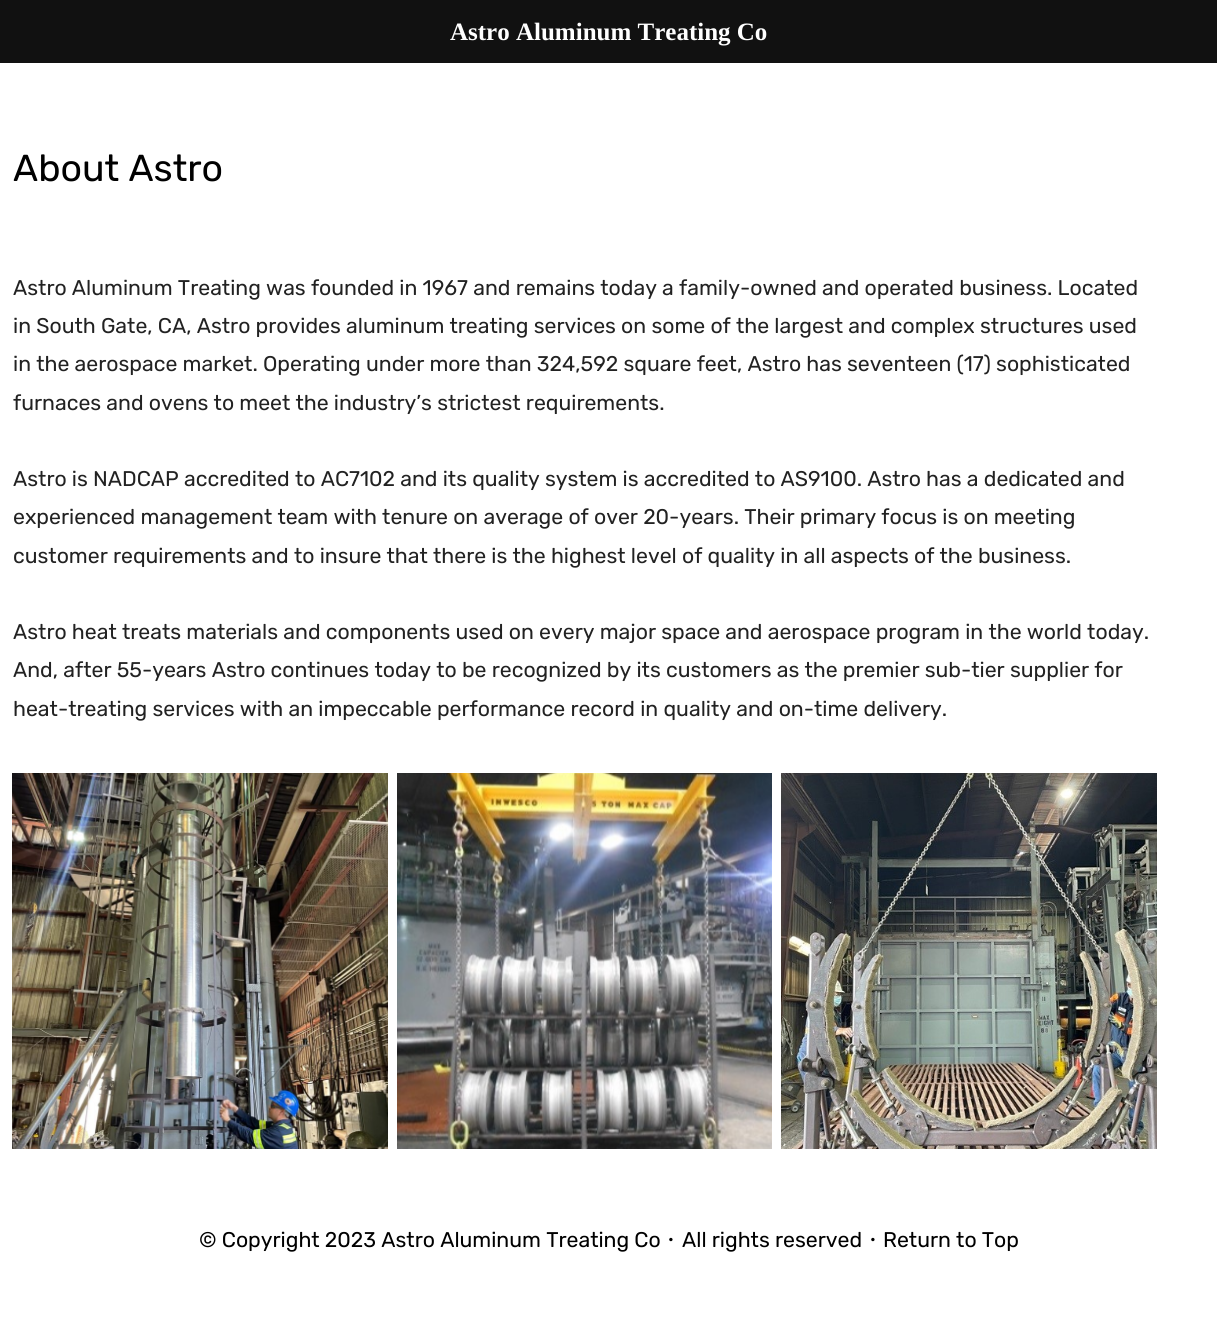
import math
import cairo



def draw_image(context, path, x, y, w, h):
    context.save()
    context.set_source_surface(cairo.ImageSurface.create_from_png(path), x, y)
    context.rectangle(x, y, w, h)
    context.fill()
    context.restore()


def draw(context):
    context.set_source_rgb(1, 1, 1)
    context.paint()
    context.set_source_rgb(17 / 255, 17 / 255, 17 / 255)
    context.rectangle(0, 0, 1217, 63)
    context.fill()
    draw_image(context, "images/1.png", 12, 773, 376, 376)
    draw_image(context, "images/2.png", 397, 773, 375, 376)
    draw_image(context, "images/3.png", 781, 773, 376, 376)
    context.select_font_face("Liberation Serif", cairo.FontSlant.NORMAL, cairo.FontWeight.BOLD)
    context.set_font_size(25)
    context.set_source_rgb(1, 1, 1)
    context.move_to(450, 40)
    context.show_text("Astro Aluminum Treating Co")
    context.select_font_face("Rubik")
    context.set_font_size(37.5)
    context.set_source_rgb(0, 0, 0)
    context.move_to(13, 181)
    context.show_text("About Astro")
    context.set_font_size(21.25)
    context.set_source_rgb(34 / 255, 34 / 255, 34 / 255)
    context.move_to(13, 295)
    context.show_text("Astro Aluminum Treating was founded in 1967 and remains today a family-owned and operated business. Located")
    context.move_to(13, 333)
    context.show_text("in South Gate, CA, Astro provides aluminum treating services on some of the largest and complex structures used")
    context.move_to(13, 371)
    context.show_text("in the aerospace market. Operating under more than 324,592 square feet, Astro has seventeen (17) sophisticated")
    context.move_to(13, 410)
    context.show_text("furnaces and ovens to meet the industry’s strictest requirements.")
    context.move_to(13, 486)
    context.show_text("Astro is NADCAP accredited to AC7102 and its quality system is accredited to AS9100. Astro has a dedicated and")
    context.move_to(13, 524)
    context.show_text("experienced management team with tenure on average of over 20-years. Their primary focus is on meeting")
    context.move_to(13, 563)
    context.show_text("customer requirements and to insure that there is the highest level of quality in all aspects of the business.")
    context.move_to(13, 639)
    context.show_text("Astro heat treats materials and components used on every major space and aerospace program in the world today.")
    context.move_to(13, 677)
    context.show_text("And, after 55-years Astro continues today to be recognized by its customers as the premier sub-tier supplier for")
    context.move_to(13, 716)
    context.show_text("heat-treating services with an impeccable performance record in quality and on-time delivery.")
    context.set_source_rgb(0, 0, 0)
    context.move_to(199, 1247)
    context.show_text("© Copyright 2023 Astro Aluminum Treating Co")
    context.select_font_face("WenQuanYi Zen Hei Medium")
    context.move_to(660, 1247)
    context.show_text("・")
    context.select_font_face("Rubik")
    context.move_to(682, 1247)
    context.show_text("All rights reserved")
    context.select_font_face("WenQuanYi Zen Hei Medium")
    context.move_to(862, 1247)
    context.show_text("・")
    context.select_font_face("Rubik")
    context.move_to(883, 1247)
    context.show_text("Return to Top")


surface = cairo.ImageSurface(cairo.Format.RGB24, 1217, 1342)
context = cairo.Context(surface)
options = cairo.FontOptions()
options.set_hint_metrics(cairo.HintMetrics.OFF)
options.set_hint_style(cairo.HintStyle.NONE)
context.set_font_options(options)
context.set_miter_limit(4)
draw(context)
surface.write_to_png("out.png")
